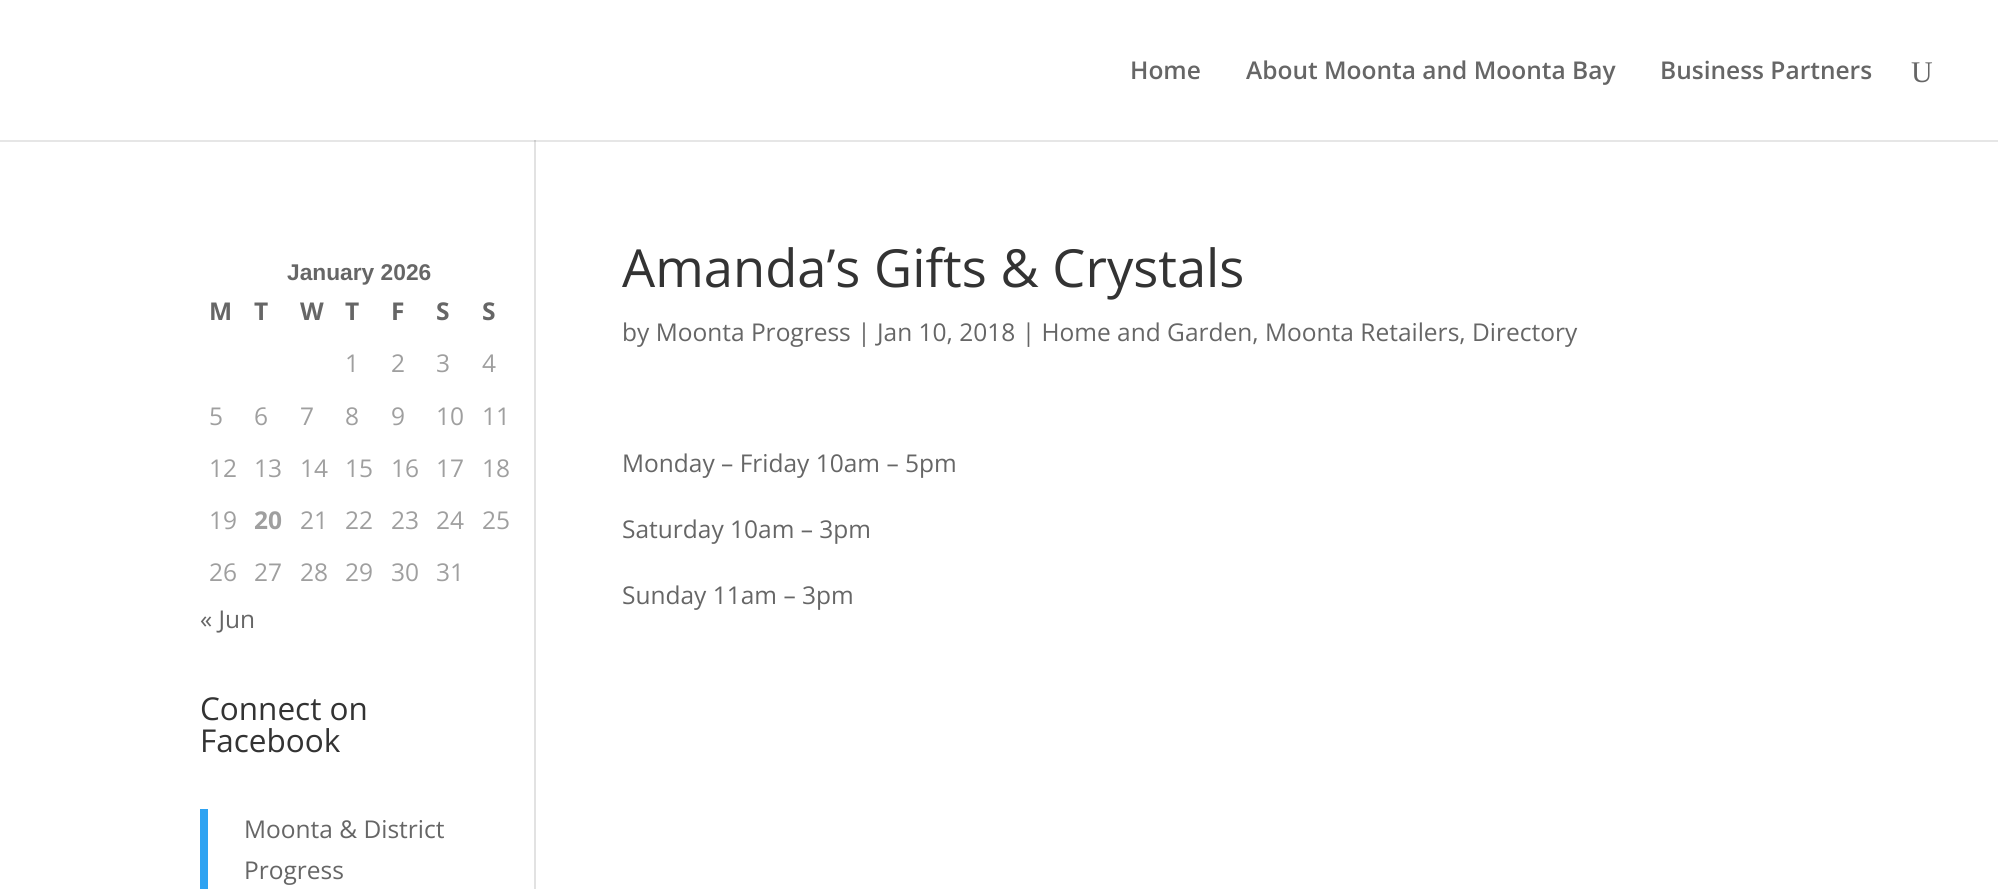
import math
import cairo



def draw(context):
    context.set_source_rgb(1, 1, 1)
    context.paint()
    context.set_source_rgb(226 / 255, 226 / 255, 226 / 255)
    context.rectangle(534, 140, 2, 749)
    context.fill()
    context.set_source_rgba(0, 0, 0, 0.1)
    context.new_path()
    context.move_to(0, 140)
    context.line_to(0, 142)
    context.line_to(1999, 142)
    context.line_to(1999, 2)
    context.line_to(1998, 2)
    context.line_to(1998, 140)
    context.close_path()
    context.fill()
    context.set_source_rgb(46 / 255, 163 / 255, 242 / 255)
    context.rectangle(200, 809, 8, 80)
    context.fill()
    context.select_font_face("Open Sans SemiBold")
    context.set_font_size(24.5)
    context.set_source_rgb(102 / 255, 102 / 255, 102 / 255)
    context.move_to(1130, 79)
    context.show_text("Home")
    context.move_to(1246, 79)
    context.show_text("About Moonta and Moonta Bay")
    context.move_to(1660, 79)
    context.show_text("Business Partners")
    context.select_font_face("Liberation Serif")
    context.set_font_size(30)
    context.move_to(1911, 82)
    context.show_text("U")
    context.select_font_face("Liberation Sans", cairo.FontSlant.NORMAL, cairo.FontWeight.BOLD)
    context.set_font_size(22.75)
    context.move_to(287, 280)
    context.show_text("January 2026")
    context.select_font_face("Open Sans", cairo.FontSlant.NORMAL, cairo.FontWeight.BOLD)
    context.set_font_size(24.5)
    context.move_to(209, 320)
    context.show_text("M")
    context.move_to(254, 320)
    context.show_text("T")
    context.move_to(300, 320)
    context.show_text("W")
    context.move_to(345, 320)
    context.show_text("T")
    context.move_to(391, 320)
    context.show_text("F")
    context.move_to(436, 320)
    context.show_text("S")
    context.move_to(482, 320)
    context.show_text("S")
    context.select_font_face("Open Sans")
    context.set_source_rgb(159 / 255, 159 / 255, 159 / 255)
    context.move_to(345, 372)
    context.show_text("1")
    context.move_to(391, 372)
    context.show_text("2")
    context.move_to(436, 372)
    context.show_text("3")
    context.move_to(482, 372)
    context.show_text("4")
    context.move_to(209, 425)
    context.show_text("5")
    context.move_to(254, 425)
    context.show_text("6")
    context.move_to(300, 425)
    context.show_text("7")
    context.move_to(345, 425)
    context.show_text("8")
    context.move_to(391, 425)
    context.show_text("9")
    context.move_to(436, 425)
    context.show_text("10")
    context.move_to(482, 425)
    context.show_text("11")
    context.move_to(209, 477)
    context.show_text("12")
    context.move_to(254, 477)
    context.show_text("13")
    context.move_to(300, 477)
    context.show_text("14")
    context.move_to(345, 477)
    context.show_text("15")
    context.move_to(391, 477)
    context.show_text("16")
    context.move_to(436, 477)
    context.show_text("17")
    context.move_to(482, 477)
    context.show_text("18")
    context.move_to(209, 529)
    context.show_text("19")
    context.select_font_face("Open Sans", cairo.FontSlant.NORMAL, cairo.FontWeight.BOLD)
    context.move_to(254, 529)
    context.show_text("20")
    context.select_font_face("Open Sans")
    context.move_to(300, 529)
    context.show_text("21")
    context.move_to(345, 529)
    context.show_text("22")
    context.move_to(391, 529)
    context.show_text("23")
    context.move_to(436, 529)
    context.show_text("24")
    context.move_to(482, 529)
    context.show_text("25")
    context.move_to(209, 581)
    context.show_text("26")
    context.move_to(254, 581)
    context.show_text("27")
    context.move_to(300, 581)
    context.show_text("28")
    context.move_to(345, 581)
    context.show_text("29")
    context.move_to(391, 581)
    context.show_text("30")
    context.move_to(436, 581)
    context.show_text("31")
    context.set_source_rgb(102 / 255, 102 / 255, 102 / 255)
    context.move_to(200, 628)
    context.show_text("« Jun")
    context.set_font_size(31.5)
    context.set_source_rgb(51 / 255, 51 / 255, 51 / 255)
    context.move_to(200, 720)
    context.show_text("Connect on")
    context.move_to(200, 752)
    context.show_text("Facebook")
    context.set_font_size(24.5)
    context.set_source_rgb(102 / 255, 102 / 255, 102 / 255)
    context.move_to(244, 838)
    context.show_text("Moonta & District")
    context.move_to(244, 879)
    context.show_text("Progress")
    context.set_font_size(52.5)
    context.set_source_rgb(51 / 255, 51 / 255, 51 / 255)
    context.move_to(622, 287)
    context.show_text("Amanda’s Gifts & Crystals")
    context.set_font_size(24.5)
    context.set_source_rgb(102 / 255, 102 / 255, 102 / 255)
    context.move_to(622, 341)
    context.show_text("by Moonta Progress | Jan 10, 2018 | Home and Garden, Moonta Retailers, Directory")
    context.move_to(622, 472)
    context.show_text("Monday – Friday 10am – 5pm")
    context.move_to(622, 538)
    context.show_text("Saturday 10am – 3pm")
    context.move_to(622, 604)
    context.show_text("Sunday 11am – 3pm")


surface = cairo.ImageSurface(cairo.Format.RGB24, 1998, 889)
context = cairo.Context(surface)
options = cairo.FontOptions()
options.set_hint_metrics(cairo.HintMetrics.OFF)
options.set_hint_style(cairo.HintStyle.NONE)
context.set_font_options(options)
context.set_miter_limit(4)
draw(context)
surface.write_to_png("out.png")
